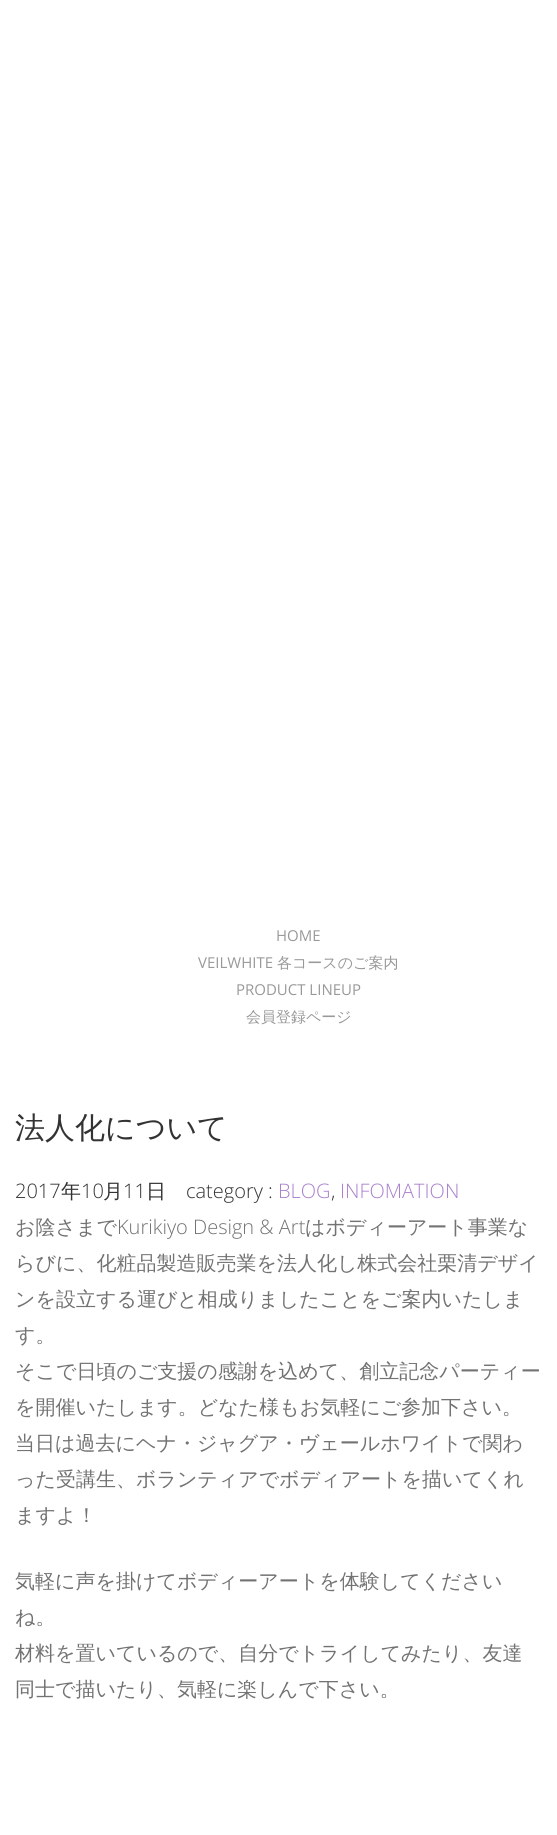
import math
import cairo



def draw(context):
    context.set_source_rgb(1, 1, 1)
    context.paint()
    context.select_font_face("Open Sans")
    context.set_font_size(15)
    context.set_source_rgb(153 / 255, 153 / 255, 153 / 255)
    context.move_to(276, 941)
    context.show_text("HOME")
    context.move_to(198, 968)
    context.show_text("VEILWHITE")
    context.select_font_face("WenQuanYi Zen Hei Medium")
    context.move_to(277, 968)
    context.show_text("各コースのご案内")
    context.select_font_face("Open Sans")
    context.move_to(236, 995)
    context.show_text("PRODUCT LINEUP")
    context.select_font_face("WenQuanYi Zen Hei Medium")
    context.move_to(246, 1022)
    context.show_text("会員登録ページ")
    context.set_font_size(30)
    context.set_source_rgb(51 / 255, 51 / 255, 51 / 255)
    context.move_to(15, 1138)
    context.show_text("法人化について")
    context.select_font_face("Open Sans Light")
    context.set_font_size(20)
    context.move_to(15, 1198)
    context.show_text("2017")
    context.select_font_face("WenQuanYi Zen Hei Medium")
    context.move_to(61, 1198)
    context.show_text("年")
    context.select_font_face("Open Sans Light")
    context.move_to(81, 1198)
    context.show_text("10")
    context.select_font_face("WenQuanYi Zen Hei Medium")
    context.move_to(103, 1198)
    context.show_text("月")
    context.select_font_face("Open Sans Light")
    context.move_to(123, 1198)
    context.show_text("11")
    context.select_font_face("WenQuanYi Zen Hei Medium")
    context.move_to(146, 1198)
    context.show_text("日")
    context.select_font_face("Open Sans Light")
    context.move_to(186, 1198)
    context.show_text("category :")
    context.set_source_rgb(169 / 255, 128 / 255, 205 / 255)
    context.move_to(278, 1198)
    context.show_text("BLOG")
    context.set_source_rgb(51 / 255, 51 / 255, 51 / 255)
    context.move_to(331, 1198)
    context.show_text(",")
    context.set_source_rgb(169 / 255, 128 / 255, 205 / 255)
    context.move_to(340, 1198)
    context.show_text("INFOMATION")
    context.select_font_face("WenQuanYi Zen Hei Medium")
    context.set_source_rgb(114 / 255, 114 / 255, 114 / 255)
    context.move_to(15, 1234)
    context.show_text("お陰さまで")
    context.select_font_face("Open Sans Light")
    context.move_to(117, 1234)
    context.show_text("Kurikiyo Design & Art")
    context.select_font_face("WenQuanYi Zen Hei Medium")
    context.move_to(305, 1234)
    context.show_text("はボディーアート事業な")
    context.move_to(15, 1270)
    context.show_text("らびに、化粧品製造販売業を法人化し株式会社栗清デザイ")
    context.move_to(15, 1306)
    context.show_text("ンを設立する運びと相成りましたことをご案内いたしま")
    context.move_to(15, 1342)
    context.show_text("す。")
    context.move_to(15, 1378)
    context.show_text("そこで日頃のご支援の感謝を込めて、創立記念パーティー")
    context.move_to(15, 1414)
    context.show_text("を開催いたします。どなた様もお気軽にご参加下さい。")
    context.move_to(15, 1450)
    context.show_text("当日は過去にヘナ・ジャグア・ヴェールホワイトで関わ")
    context.move_to(15, 1486)
    context.show_text("った受講生、ボランティアでボディアートを描いてくれ")
    context.move_to(15, 1522)
    context.show_text("ますよ！")
    context.move_to(15, 1588)
    context.show_text("気軽に声を掛けてボディーアートを体験してください")
    context.move_to(15, 1624)
    context.show_text("ね。")
    context.move_to(15, 1660)
    context.show_text("材料を置いているので、自分でトライしてみたり、友達")
    context.move_to(15, 1696)
    context.show_text("同士で描いたり、気軽に楽しんで下さい。")


surface = cairo.ImageSurface(cairo.Format.RGB24, 557, 1835)
context = cairo.Context(surface)
options = cairo.FontOptions()
options.set_hint_metrics(cairo.HintMetrics.OFF)
options.set_hint_style(cairo.HintStyle.NONE)
context.set_font_options(options)
context.set_miter_limit(4)
draw(context)
surface.write_to_png("out.png")
